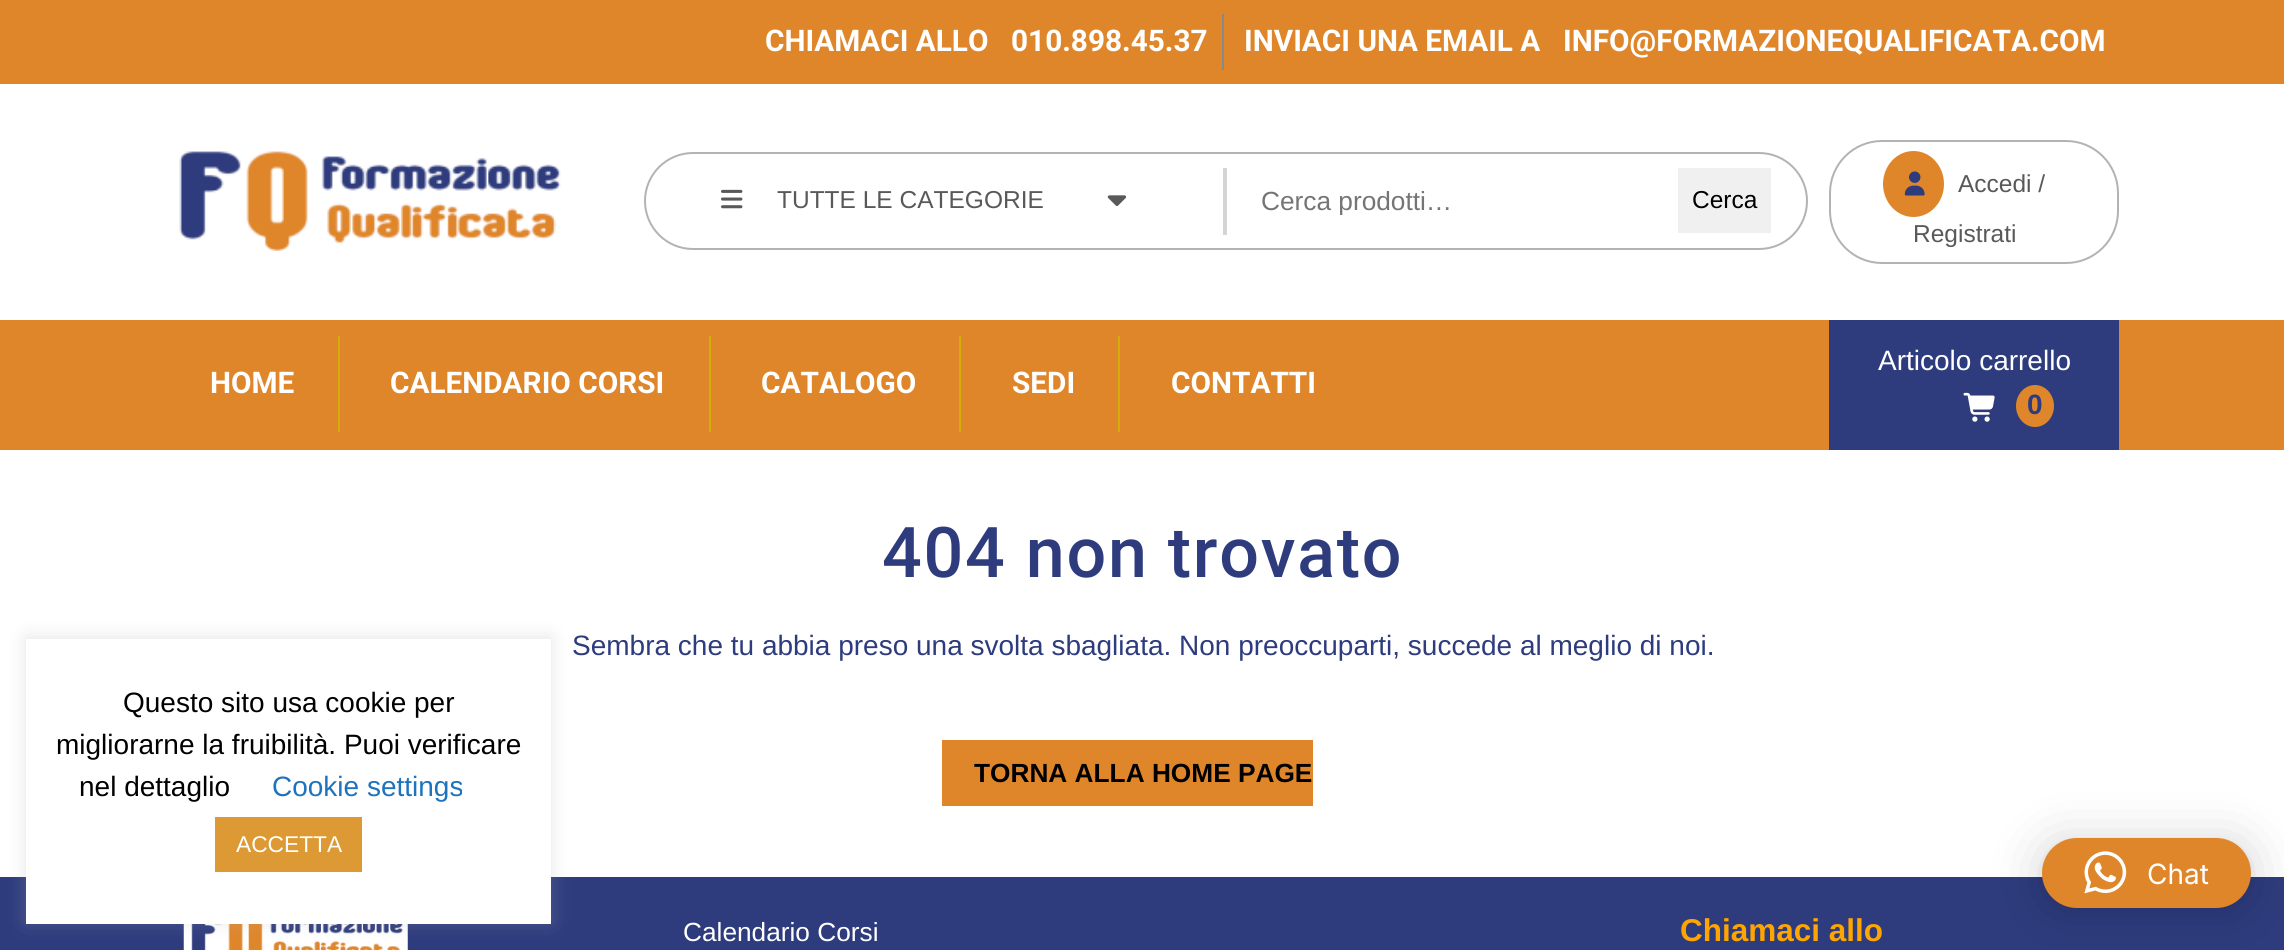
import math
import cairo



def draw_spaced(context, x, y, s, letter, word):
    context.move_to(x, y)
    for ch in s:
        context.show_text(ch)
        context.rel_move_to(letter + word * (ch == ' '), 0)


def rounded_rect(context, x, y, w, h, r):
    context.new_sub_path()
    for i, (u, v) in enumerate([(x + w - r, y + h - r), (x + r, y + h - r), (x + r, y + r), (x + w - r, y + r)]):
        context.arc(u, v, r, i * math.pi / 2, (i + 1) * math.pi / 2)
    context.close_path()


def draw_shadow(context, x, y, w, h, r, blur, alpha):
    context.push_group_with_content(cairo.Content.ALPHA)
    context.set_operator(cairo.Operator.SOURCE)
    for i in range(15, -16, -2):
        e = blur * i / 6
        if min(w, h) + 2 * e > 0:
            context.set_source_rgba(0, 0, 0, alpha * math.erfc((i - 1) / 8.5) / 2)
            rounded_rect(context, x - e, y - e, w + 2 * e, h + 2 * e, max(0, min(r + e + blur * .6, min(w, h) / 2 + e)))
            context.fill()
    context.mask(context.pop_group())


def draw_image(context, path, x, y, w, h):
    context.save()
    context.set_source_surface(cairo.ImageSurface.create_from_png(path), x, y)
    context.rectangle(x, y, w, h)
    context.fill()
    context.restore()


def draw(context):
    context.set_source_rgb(1, 1, 1)
    context.paint()
    context.set_source_rgb(223 / 255, 134 / 255, 43 / 255)
    context.rectangle(0, 0, 2284, 84)
    context.fill()
    context.set_source_rgb(137 / 255, 137 / 255, 137 / 255)
    context.rectangle(1222, 14, 2, 56)
    context.fill()
    draw_image(context, "images/1.png", 179, 151, 382, 100)
    rounded_rect(context, 645, 153, 1162, 96, 48)
    context.set_source_rgb(179 / 255, 179 / 255, 179 / 255)
    context.stroke()
    context.set_source_rgb(213 / 255, 213 / 255, 213 / 255)
    context.rectangle(1223, 168, 4, 67)
    context.fill()
    draw_image(context, "images/2.png", 721, 189, 22, 20)
    draw_image(context, "images/3.png", 1107, 195, 20, 11)
    context.set_source_rgb(240 / 255, 240 / 255, 240 / 255)
    context.rectangle(1678, 168, 93, 65)
    context.fill()
    rounded_rect(context, 1830, 141, 288, 122, 52)
    context.set_source_rgb(179 / 255, 179 / 255, 179 / 255)
    context.stroke()
    context.set_source_rgb(223 / 255, 134 / 255, 43 / 255)
    context.new_path()
    context.move_to(1913.5, 151)
    context.curve_to(1930.5, 151, 1944, 166, 1944, 184)
    context.curve_to(1944, 202, 1930.5, 217, 1913.5, 217)
    context.curve_to(1896.5, 217, 1883, 202, 1883, 184)
    context.curve_to(1883, 166, 1896.5, 151, 1913.5, 151)
    context.close_path()
    context.fill()
    draw_image(context, "images/4.png", 1904, 171, 21, 25)
    context.rectangle(0, 320, 2284, 130)
    context.fill()
    context.set_source_rgb(214 / 255, 172 / 255, 13 / 255)
    context.rectangle(338, 336, 2, 96)
    context.fill()
    context.rectangle(709, 336, 2, 96)
    context.fill()
    context.rectangle(959, 336, 2, 96)
    context.fill()
    context.rectangle(1118, 336, 2, 96)
    context.fill()
    context.set_source_rgb(46 / 255, 60 / 255, 126 / 255)
    context.rectangle(1829, 320, 290, 130)
    context.fill()
    draw_image(context, "images/5.png", 1963, 392, 32, 30)
    context.set_source_rgb(223 / 255, 134 / 255, 43 / 255)
    context.new_path()
    context.move_to(2035, 385)
    context.curve_to(2045.5, 385, 2054, 394.5, 2054, 406)
    context.curve_to(2054, 417.5, 2045.5, 427, 2035, 427)
    context.curve_to(2024.5, 427, 2016, 417.5, 2016, 406)
    context.curve_to(2016, 394.5, 2024.5, 385, 2035, 385)
    context.close_path()
    context.fill()
    context.set_source_rgb(46 / 255, 60 / 255, 126 / 255)
    context.rectangle(0, 877, 2284, 73)
    context.fill()
    draw_image(context, "images/7.png", 183, 924, 225, 26)
    context.set_source_rgb(172 / 255, 171 / 255, 171 / 255)
    draw_shadow(context, 26, 637, 525, 285, 0, 9, 0.3)
    context.set_source_rgb(1, 1, 1)
    context.rectangle(26, 639, 525, 285)
    context.fill()
    context.set_source_rgb(221 / 255, 153 / 255, 51 / 255)
    context.rectangle(215, 817, 147, 55)
    context.fill()
    context.set_source_rgb(223 / 255, 134 / 255, 43 / 255)
    context.rectangle(942, 740, 371, 66)
    context.fill()
    context.set_source_rgb(0, 0, 0)
    draw_shadow(context, 2042, 842, 209, 70, 35, 28, 0.16)
    draw_shadow(context, 2042, 840, 209, 70, 35, 5, 0.06)
    context.set_source_rgb(223 / 255, 134 / 255, 43 / 255)
    rounded_rect(context, 2042, 838, 209, 70, 35)
    context.fill()
    draw_image(context, "images/6.png", 2084, 851, 43, 43)
    context.select_font_face("Roboto", cairo.FontSlant.NORMAL, cairo.FontWeight.BOLD)
    context.set_font_size(29.75)
    context.set_source_rgb(1, 1, 1)
    context.move_to(765, 51)
    context.show_text("CHIAMACI ALLO")
    context.move_to(1011, 51)
    context.show_text("010.898.45.37")
    context.move_to(1244, 51)
    context.show_text("INVIACI UNA EMAIL A")
    context.move_to(1563, 51)
    context.show_text("INFO@FORMAZIONEQUALIFICATA.COM")
    context.select_font_face("Liberation Sans")
    context.set_font_size(24.5)
    context.set_source_rgb(89 / 255, 89 / 255, 89 / 255)
    context.move_to(777, 208)
    context.show_text("TUTTE LE CATEGORIE")
    context.save()
    context.rectangle(1262, 186, 366, 29)
    context.clip()
    context.set_font_size(26.25)
    context.set_source_rgb(117 / 255, 117 / 255, 117 / 255)
    context.move_to(1261, 210)
    context.show_text("Cerca prodotti…")
    context.restore()
    context.set_source_rgb(0, 0, 0)
    context.move_to(1692, 208)
    context.show_text("Cerca")
    context.set_source_rgb(89 / 255, 89 / 255, 89 / 255)
    context.move_to(1958, 192)
    context.show_text("Accedi /")
    context.move_to(1913, 242)
    context.show_text("Registrati")
    context.select_font_face("Roboto", cairo.FontSlant.NORMAL, cairo.FontWeight.BOLD)
    context.set_font_size(29.75)
    context.set_source_rgb(1, 1, 1)
    context.move_to(210, 393)
    context.show_text("HOME")
    context.move_to(390, 393)
    context.show_text("CALENDARIO CORSI")
    context.move_to(761, 393)
    context.show_text("CATALOGO")
    context.move_to(1012, 393)
    context.show_text("SEDI")
    context.move_to(1171, 393)
    context.show_text("CONTATTI")
    context.select_font_face("Liberation Sans")
    context.set_font_size(28)
    context.move_to(1878, 370)
    context.show_text("Articolo carrello")
    context.select_font_face("Liberation Sans", cairo.FontSlant.NORMAL, cairo.FontWeight.BOLD)
    context.set_source_rgb(46 / 255, 60 / 255, 126 / 255)
    context.move_to(2027, 414)
    context.show_text("0")
    context.select_font_face("Liberation Sans")
    context.set_source_rgb(0, 0, 0)
    context.move_to(123, 712)
    context.show_text("Questo sito usa cookie per")
    context.move_to(56, 754)
    context.show_text("migliorarne la fruibilità. Puoi verificare")
    context.move_to(79, 796)
    context.show_text("nel dettaglio")
    context.set_source_rgb(30 / 255, 115 / 255, 190 / 255)
    context.move_to(272, 796)
    context.show_text("Cookie settings")
    context.set_font_size(22.75)
    context.set_source_rgb(1, 1, 1)
    context.move_to(236, 852)
    context.show_text("ACCETTA")
    context.select_font_face("Roboto Medium")
    context.set_font_size(70)
    context.set_source_rgb(46 / 255, 60 / 255, 126 / 255)
    draw_spaced(context, 882, 577, "404 non trovato", 1.75, 0)
    context.select_font_face("Liberation Sans")
    context.set_font_size(28)
    context.move_to(572, 655)
    context.show_text("Sembra che tu abbia preso una svolta sbagliata. Non preoccuparti, succede al meglio di noi.")
    context.select_font_face("Liberation Sans", cairo.FontSlant.NORMAL, cairo.FontWeight.BOLD)
    context.set_font_size(26.25)
    context.set_source_rgb(0, 0, 0)
    context.move_to(974, 782)
    context.show_text("TORNA ALLA HOME PAGE")
    context.select_font_face("Inter")
    context.set_font_size(28)
    context.set_source_rgb(1, 1, 1)
    context.move_to(2147, 884)
    context.show_text("Chat")
    context.select_font_face("Liberation Sans")
    context.set_font_size(26.25)
    context.move_to(683, 941)
    context.show_text("Calendario Corsi")
    context.select_font_face("Liberation Sans", cairo.FontSlant.NORMAL, cairo.FontWeight.BOLD)
    context.set_font_size(31.5)
    context.set_source_rgb(1, 165 / 255, 0)
    context.move_to(1680, 941)
    context.show_text("Chiamaci allo")


surface = cairo.ImageSurface(cairo.Format.RGB24, 2284, 950)
context = cairo.Context(surface)
options = cairo.FontOptions()
options.set_hint_metrics(cairo.HintMetrics.OFF)
options.set_hint_style(cairo.HintStyle.NONE)
context.set_font_options(options)
context.set_miter_limit(4)
draw(context)
surface.write_to_png("out.png")
